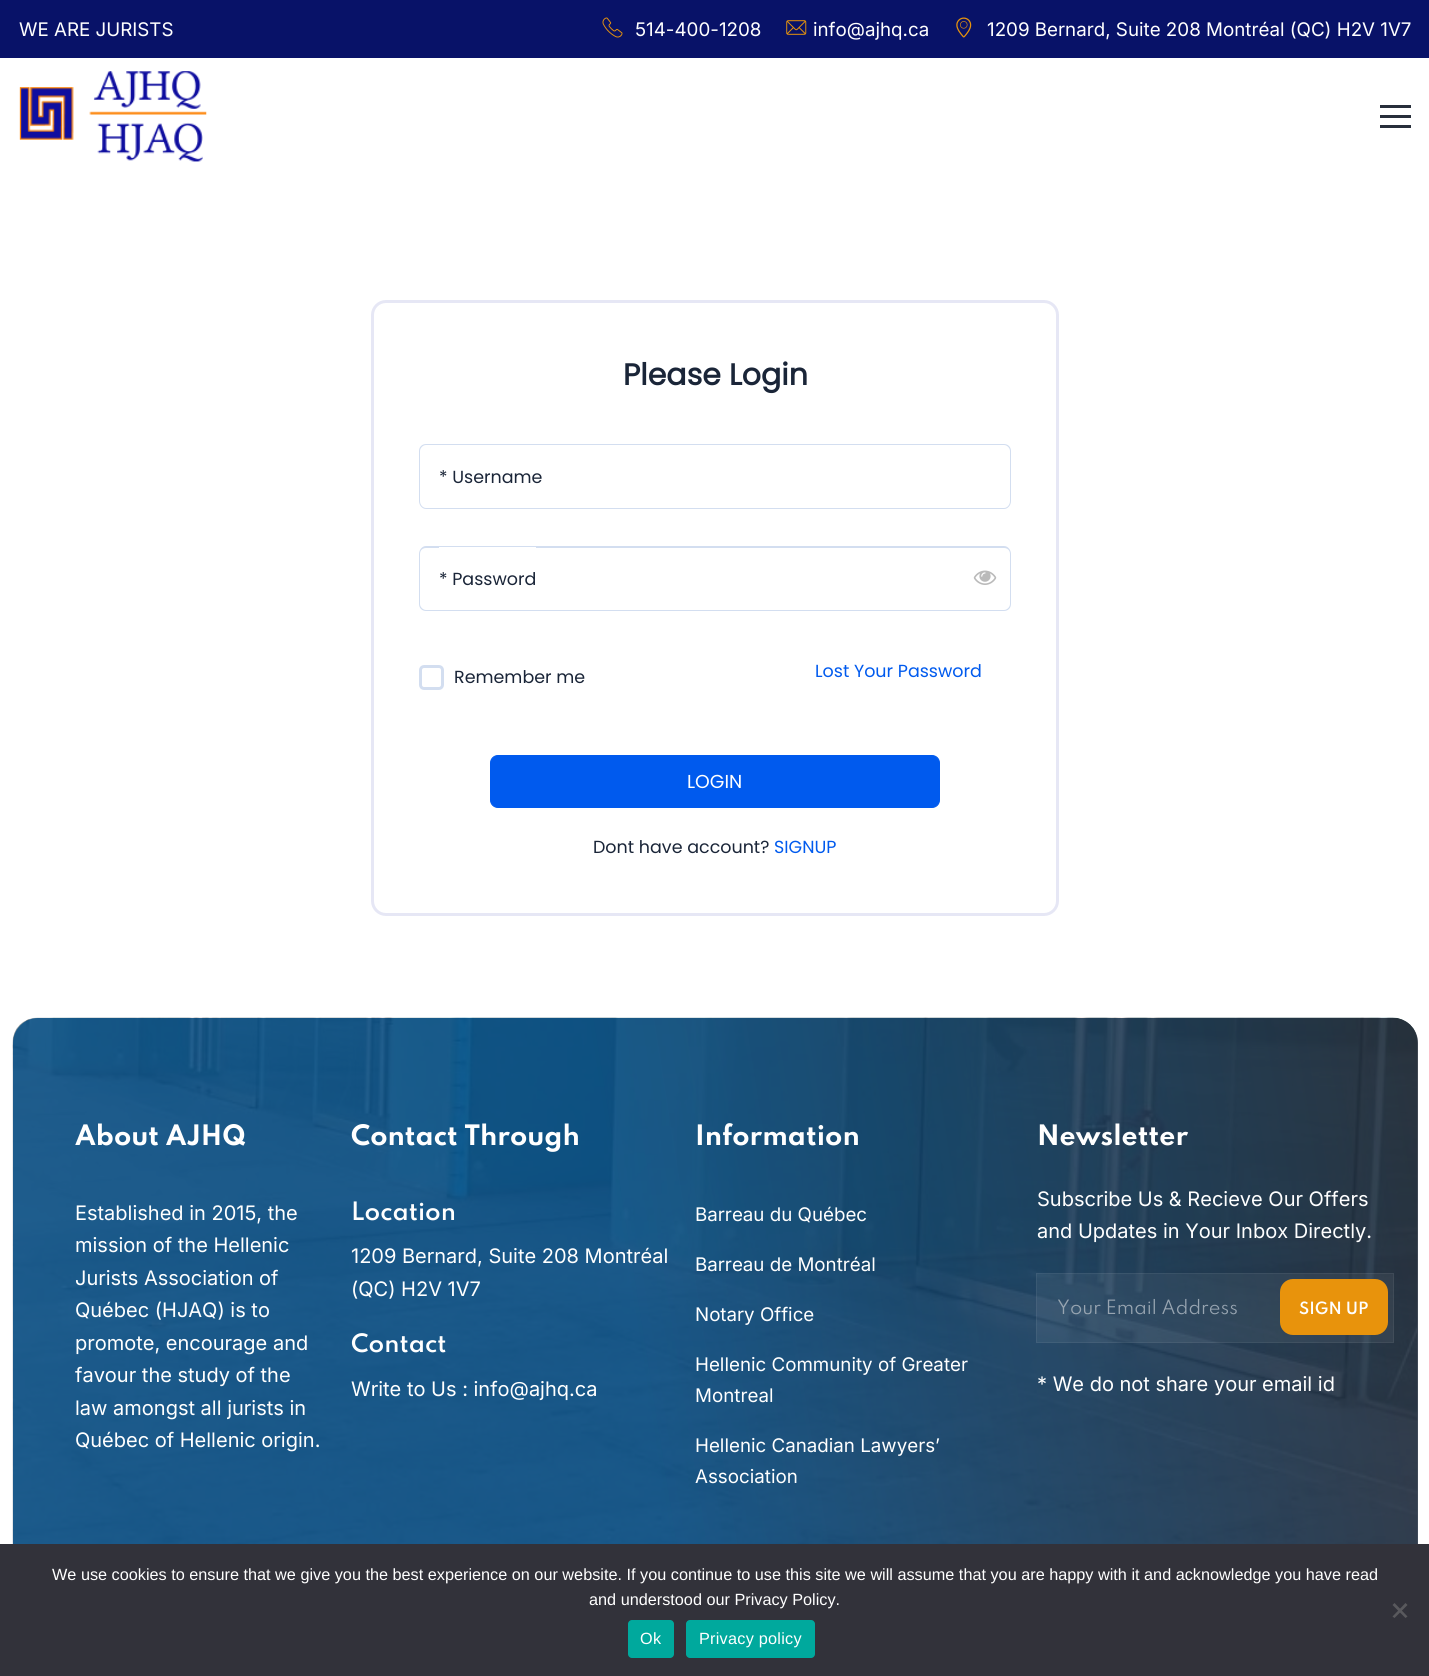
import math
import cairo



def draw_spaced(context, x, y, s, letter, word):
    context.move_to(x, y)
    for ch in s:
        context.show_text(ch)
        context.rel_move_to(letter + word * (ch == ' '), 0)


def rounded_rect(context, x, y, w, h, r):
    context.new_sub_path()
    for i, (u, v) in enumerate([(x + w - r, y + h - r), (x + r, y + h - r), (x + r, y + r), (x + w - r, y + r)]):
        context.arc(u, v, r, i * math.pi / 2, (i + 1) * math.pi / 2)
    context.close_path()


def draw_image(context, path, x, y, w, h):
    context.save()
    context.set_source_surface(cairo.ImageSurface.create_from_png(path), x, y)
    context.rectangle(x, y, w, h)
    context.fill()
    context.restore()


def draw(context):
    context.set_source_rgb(1, 1, 1)
    context.paint()
    context.set_source_rgb(8 / 255, 18 / 255, 104 / 255)
    context.rectangle(0, 0, 1429, 58)
    context.fill()
    draw_image(context, "images/1.png", 602, 17, 21, 21)
    draw_image(context, "images/2.png", 786, 20, 21, 15)
    draw_image(context, "images/3.png", 956, 17, 16, 21)
    draw_image(context, "images/4.png", 19, 71, 188, 91)
    context.set_source_rgb(40 / 255, 47 / 255, 59 / 255)
    context.rectangle(1380, 105, 31, 3)
    context.fill()
    context.rectangle(1380, 115, 31, 3)
    context.fill()
    context.rectangle(1380, 125, 31, 3)
    context.fill()
    rounded_rect(context, 372.5, 301.5, 685, 613, 13.5)
    context.set_source_rgb(230 / 255, 231 / 255, 245 / 255)
    context.set_line_width(3)
    context.stroke()
    context.set_source_rgb(211 / 255, 222 / 255, 240 / 255)
    context.set_fill_rule(cairo.FillRule.EVEN_ODD)
    context.new_path()
    context.move_to(426, 444)
    context.line_to(439, 444)
    context.line_to(439, 509)
    context.line_to(426, 509)
    context.curve_to(422, 509, 419, 505, 419, 501)
    context.line_to(419, 451)
    context.curve_to(419, 447, 422, 444, 426, 444)
    context.close_path()
    context.move_to(426, 445)
    context.line_to(439, 445)
    context.line_to(439, 508)
    context.line_to(426, 508)
    context.curve_to(423, 508, 420, 505, 420, 501)
    context.line_to(420, 451)
    context.curve_to(420, 448, 423, 445, 426, 445)
    context.close_path()
    context.fill()
    context.rectangle(439, 444, 104, 1)
    context.fill()
    context.rectangle(439, 508, 104, 1)
    context.fill()
    context.new_path()
    context.move_to(542, 444)
    context.line_to(1004, 444)
    context.curve_to(1008, 444, 1011, 447, 1011, 451)
    context.line_to(1011, 501)
    context.curve_to(1011, 505, 1008, 509, 1004, 509)
    context.line_to(542, 509)
    context.close_path()
    context.move_to(542, 445)
    context.line_to(1004, 445)
    context.curve_to(1007, 445, 1010, 448, 1010, 451)
    context.line_to(1010, 501)
    context.curve_to(1010, 505, 1007, 508, 1004, 508)
    context.line_to(542, 508)
    context.close_path()
    context.fill()
    context.new_path()
    context.move_to(426, 546)
    context.line_to(439, 546)
    context.line_to(439, 611)
    context.line_to(426, 611)
    context.curve_to(422, 611, 419, 608, 419, 604)
    context.line_to(419, 554)
    context.curve_to(419, 550, 422, 546, 426, 546)
    context.close_path()
    context.move_to(426, 548)
    context.line_to(439, 548)
    context.line_to(439, 610)
    context.line_to(426, 610)
    context.curve_to(423, 610, 420, 607, 420, 604)
    context.line_to(420, 554)
    context.curve_to(420, 550, 423, 548, 426, 548)
    context.close_path()
    context.fill()
    context.rectangle(439, 546, 97, 1)
    context.fill()
    context.rectangle(439, 610, 97, 1)
    context.fill()
    context.new_path()
    context.move_to(536, 546)
    context.line_to(1004, 546)
    context.curve_to(1008, 546, 1011, 550, 1011, 554)
    context.line_to(1011, 604)
    context.curve_to(1011, 608, 1008, 611, 1004, 611)
    context.line_to(536, 611)
    context.close_path()
    context.move_to(536, 548)
    context.line_to(1004, 548)
    context.curve_to(1007, 548, 1010, 550, 1010, 554)
    context.line_to(1010, 604)
    context.curve_to(1010, 607, 1007, 610, 1004, 610)
    context.line_to(536, 610)
    context.close_path()
    context.fill()
    draw_image(context, "images/5.png", 973, 570, 24, 15)
    rounded_rect(context, 420.5, 666.5, 22, 22, 3.5)
    context.stroke()
    context.set_source_rgb(0, 90 / 255, 238 / 255)
    rounded_rect(context, 490.5, 755.5, 449, 52, 7.5)
    context.fill_preserve()
    context.set_line_width(1)
    context.stroke()
    draw_image(context, "images/6.png", 12, 1017, 1406, 527)
    gradient = cairo.LinearGradient(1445, 1190, -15, 1421)
    gradient.add_color_stop_rgba(0, 40 / 255, 47 / 255, 59 / 255, 0.86)
    gradient.add_color_stop_rgba(0.56, 7 / 255, 79 / 255, 134 / 255, 0.86)
    context.set_source(gradient)
    rounded_rect(context, 13, 1018, 1405, 576, 25)
    context.fill()
    context.set_source_rgba(1, 1, 1, 0.06)
    context.rectangle(1036, 1273, 358, 70)
    context.fill()
    context.rectangle(1036.5, 1273.5, 357, 69)
    context.stroke()
    context.set_source_rgb(232 / 255, 147 / 255, 12 / 255)
    rounded_rect(context, 1280, 1279, 108, 56, 13)
    context.fill()
    context.set_source_rgb(50 / 255, 50 / 255, 58 / 255)
    context.rectangle(0, 1544, 1429, 132)
    context.fill()
    context.set_source_rgb(89 / 255, 89 / 255, 93 / 255)
    context.set_fill_rule(cairo.FillRule.WINDING)
    context.new_path()
    context.move_to(1405.5, 1603)
    context.line_to(1407.5, 1605)
    context.line_to(1394.5, 1618)
    context.line_to(1392.5, 1616.5)
    context.close_path()
    context.fill()
    context.new_path()
    context.move_to(1392.5, 1605)
    context.line_to(1394.5, 1603)
    context.line_to(1407.5, 1616.5)
    context.line_to(1405.5, 1618)
    context.close_path()
    context.fill()
    context.set_source_rgb(0, 169 / 255, 157 / 255)
    rounded_rect(context, 628, 1620, 46, 38, 4)
    context.fill()
    rounded_rect(context, 686, 1620, 129, 38, 4)
    context.fill()
    context.select_font_face("Inter")
    context.set_font_size(18.75)
    context.set_source_rgb(1, 1, 1)
    context.move_to(19, 36)
    context.show_text("WE ARE JURISTS")
    context.move_to(635, 36)
    context.show_text("514-400-1208")
    context.move_to(813, 36)
    context.show_text("info@ajhq.ca")
    context.move_to(987, 36)
    context.show_text("1209 Bernard, Suite 208 Montréal (QC) H2V 1V7")
    context.select_font_face("Poppins", cairo.FontSlant.NORMAL, cairo.FontWeight.BOLD)
    context.set_font_size(30)
    context.set_source_rgb(26 / 255, 37 / 255, 56 / 255)
    context.move_to(623, 385)
    context.show_text("Please Login")
    context.select_font_face("Poppins")
    context.set_font_size(17.5)
    context.move_to(439, 483)
    context.show_text("* Username")
    context.move_to(439, 585)
    context.show_text("* Password")
    context.move_to(454, 683)
    context.show_text("Remember me")
    context.set_font_size(18.75)
    context.set_source_rgb(1, 1, 1)
    context.move_to(687, 788)
    context.show_text("LOGIN")
    context.set_font_size(17.5)
    context.set_source_rgb(0, 90 / 255, 238 / 255)
    context.move_to(815, 677)
    context.show_text("Lost Your Password")
    context.set_source_rgb(26 / 255, 37 / 255, 56 / 255)
    context.move_to(593, 853)
    context.show_text("Dont have account?")
    context.set_source_rgb(0, 90 / 255, 238 / 255)
    context.move_to(774, 853)
    context.show_text("SIGNUP")
    context.select_font_face("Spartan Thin", cairo.FontSlant.NORMAL, cairo.FontWeight.BOLD)
    context.set_font_size(25)
    context.set_source_rgb(1, 1, 1)
    context.move_to(75, 1145)
    context.show_text("About AJHQ")
    context.select_font_face("Inter")
    context.set_font_size(20)
    context.move_to(75, 1220)
    context.show_text("Established in 2015, the")
    context.move_to(75, 1252)
    context.show_text("mission of the Hellenic")
    context.move_to(75, 1285)
    context.show_text("Jurists Association of")
    context.move_to(75, 1317)
    context.show_text("Québec (HJAQ) is to")
    context.move_to(75, 1350)
    context.show_text("promote, encourage and")
    context.move_to(75, 1382)
    context.show_text("favour the study of the")
    context.move_to(75, 1415)
    context.show_text("law amongst all jurists in")
    context.move_to(75, 1447)
    context.show_text("Québec of Hellenic origin.")
    context.select_font_face("Spartan Thin", cairo.FontSlant.NORMAL, cairo.FontWeight.BOLD)
    context.set_font_size(25)
    context.move_to(351, 1145)
    context.show_text("Contact Through")
    context.select_font_face("Spartan Thin SemiBold")
    context.set_font_size(22.5)
    context.move_to(351, 1220)
    context.show_text("Location")
    context.select_font_face("Inter")
    context.set_font_size(20)
    context.move_to(351, 1263)
    context.show_text("1209 Bernard, Suite 208 Montréal")
    context.move_to(351, 1296)
    context.show_text("(QC) H2V 1V7")
    context.select_font_face("Spartan Thin SemiBold")
    context.set_font_size(22.5)
    context.move_to(351, 1352)
    context.show_text("Contact")
    context.select_font_face("Inter")
    context.set_font_size(20)
    context.move_to(351, 1396)
    context.show_text("Write to Us : info@ajhq.ca")
    context.select_font_face("Spartan Thin", cairo.FontSlant.NORMAL, cairo.FontWeight.BOLD)
    context.set_font_size(25)
    context.move_to(695, 1145)
    context.show_text("Information")
    context.select_font_face("Inter")
    context.set_font_size(18.75)
    context.move_to(695, 1221)
    context.show_text("Barreau du Québec")
    context.move_to(695, 1271)
    context.show_text("Barreau de Montréal")
    context.move_to(695, 1321)
    context.show_text("Notary Office")
    context.move_to(695, 1371)
    context.show_text("Hellenic Community of Greater")
    context.move_to(695, 1402)
    context.show_text("Montreal")
    context.move_to(695, 1452)
    context.show_text("Hellenic Canadian Lawyers’")
    context.move_to(695, 1483)
    context.show_text("Association")
    context.select_font_face("Spartan Thin", cairo.FontSlant.NORMAL, cairo.FontWeight.BOLD)
    context.set_font_size(25)
    context.move_to(1037, 1145)
    context.show_text("Newsletter")
    context.select_font_face("Inter")
    context.set_font_size(20)
    context.move_to(1037, 1206)
    context.show_text("Subscribe Us & Recieve Our Offers")
    context.move_to(1037, 1238)
    context.show_text("and Updates in Your Inbox Directly.")
    context.select_font_face("Spartan Thin")
    context.set_font_size(17.5)
    context.set_source_rgb(152 / 255, 165 / 255, 177 / 255)
    context.move_to(1057, 1314)
    context.show_text("Your Email Address")
    context.select_font_face("Spartan Thin SemiBold")
    context.set_font_size(15)
    context.set_source_rgb(1, 1, 1)
    context.move_to(1299, 1314)
    context.show_text("SIGN UP")
    context.select_font_face("Inter")
    context.set_font_size(20)
    context.move_to(1037, 1391)
    context.show_text("* We do not share your email id")
    context.select_font_face("Liberation Sans")
    context.set_font_size(16.25)
    context.move_to(52, 1580)
    context.show_text("We use cookies to ensure that we give you the best experience on our website. If you continue to use this site we will assume that you are happy with it and acknowledge you have read")
    context.move_to(589, 1605)
    context.show_text("and understood our Privacy Policy.")
    draw_spaced(context, 640, 1644, "Ok", 0.25, 0)
    draw_spaced(context, 699, 1644, "Privacy policy", 0.25, 0)


surface = cairo.ImageSurface(cairo.Format.RGB24, 1429, 1676)
context = cairo.Context(surface)
options = cairo.FontOptions()
options.set_hint_metrics(cairo.HintMetrics.OFF)
options.set_hint_style(cairo.HintStyle.NONE)
context.set_font_options(options)
context.set_miter_limit(4)
draw(context)
surface.write_to_png("out.png")
